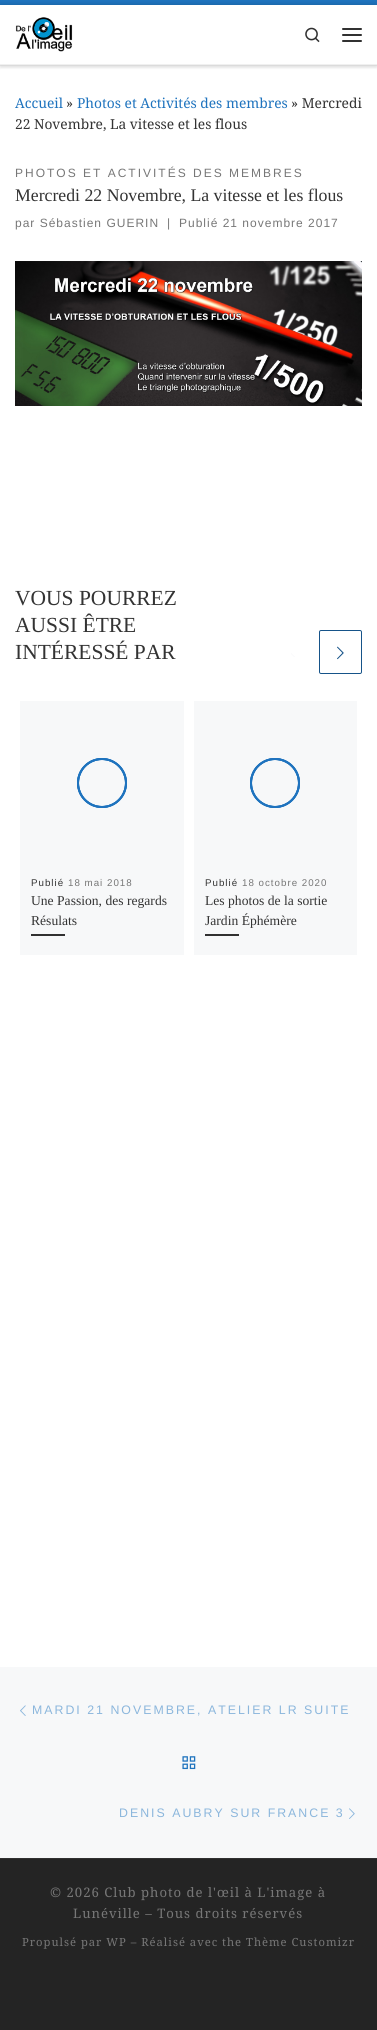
import math
import cairo



def draw_spaced(context, x, y, s, letter, word):
    context.move_to(x, y)
    for ch in s:
        context.show_text(ch)
        context.rel_move_to(letter + word * (ch == ' '), 0)


def rounded_rect(context, x, y, w, h, r):
    context.new_sub_path()
    for i, (u, v) in enumerate([(x + w - r, y + h - r), (x + r, y + h - r), (x + r, y + r), (x + w - r, y + r)]):
        context.arc(u, v, r, i * math.pi / 2, (i + 1) * math.pi / 2)
    context.close_path()


def draw_shadow(context, x, y, w, h, r, blur, alpha):
    context.push_group_with_content(cairo.Content.ALPHA)
    context.set_operator(cairo.Operator.SOURCE)
    for i in range(15, -16, -2):
        e = blur * i / 6
        if min(w, h) + 2 * e > 0:
            context.set_source_rgba(0, 0, 0, alpha * math.erfc((i - 1) / 8.5) / 2)
            rounded_rect(context, x - e, y - e, w + 2 * e, h + 2 * e, max(0, min(r + e + blur * .6, min(w, h) / 2 + e)))
            context.fill()
    context.mask(context.pop_group())


def draw_image(context, path, x, y, w, h):
    context.save()
    context.set_source_surface(cairo.ImageSurface.create_from_png(path), x, y)
    context.rectangle(x, y, w, h)
    context.fill()
    context.restore()


def draw(context):
    context.set_source_rgb(1, 1, 1)
    context.paint()
    context.save()
    context.rectangle(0, 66, 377, 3)
    context.clip()
    context.set_source_rgb(102 / 255, 102 / 255, 102 / 255)
    draw_shadow(context, 0, 2, 377, 66, 0, 1, 0.08)
    context.restore()
    context.set_source_rgb(30 / 255, 115 / 255, 190 / 255)
    context.rectangle(0, 0, 377, 5)
    context.fill()
    context.set_source_rgb(239 / 255, 239 / 255, 239 / 255)
    context.rectangle(0, 65, 377, 1)
    context.fill()
    context.save()
    context.set_fill_rule(cairo.FillRule.EVEN_ODD)
    context.new_path()
    context.move_to(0, 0)
    context.line_to(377, 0)
    context.line_to(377, 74)
    context.line_to(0, 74)
    context.close_path()
    context.move_to(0, 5)
    context.line_to(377, 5)
    context.line_to(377, 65)
    context.line_to(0, 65)
    context.close_path()
    context.clip()
    context.set_source_rgb(0, 0, 0)
    draw_shadow(context, 0, 5, 377, 60, 0, 2.5, 0.2)
    context.restore()
    draw_image(context, "images/1.png", 15, 17, 58, 35)
    draw_image(context, "images/2.png", 305, 27, 15, 16)
    context.set_source_rgb(49 / 255, 49 / 255, 49 / 255)
    rounded_rect(context, 342, 28, 20, 2, 1)
    context.fill()
    rounded_rect(context, 342, 34, 20, 2, 1)
    context.fill()
    rounded_rect(context, 342, 40, 20, 2, 1)
    context.fill()
    context.set_source_rgb(240 / 255, 240 / 255, 240 / 255)
    context.rectangle(0, 64, 377, 1)
    context.fill()
    draw_image(context, "images/3.png", 15, 261, 347, 145)
    draw_image(context, "images/4.png", 291, 653, 4, 4)
    rounded_rect(context, 319.5, 630.5, 42, 43, 1.5)
    context.set_source_rgb(22 / 255, 83 / 255, 137 / 255)
    context.set_line_width(1)
    context.stroke()
    draw_image(context, "images/5.png", 337, 646, 7, 14)
    context.set_source_rgb(247 / 255, 248 / 255, 249 / 255)
    context.rectangle(20, 701, 164, 254)
    context.fill()
    context.arc(102, 783, 24, 0, 2 * math.pi)
    context.set_source_rgb(30 / 255, 115 / 255, 190 / 255)
    context.set_line_width(2)
    context.stroke()
    context.arc(102, 783, 24, 0, 2 * math.pi)
    context.stroke()
    context.arc(102, 783, 24, 0, 2 * math.pi)
    context.stroke()
    context.set_source_rgb(49 / 255, 49 / 255, 49 / 255)
    context.rectangle(31, 934, 34, 2)
    context.fill()
    context.set_source_rgb(247 / 255, 248 / 255, 249 / 255)
    context.rectangle(194, 701, 163, 254)
    context.fill()
    context.arc(275, 783, 24, 0, 2 * math.pi)
    context.set_source_rgb(31 / 255, 115 / 255, 190 / 255)
    context.stroke()
    context.arc(275, 783, 24, 0, 2 * math.pi)
    context.stroke()
    context.arc(275, 783, 24, 0, 2 * math.pi)
    context.stroke()
    context.set_source_rgb(49 / 255, 49 / 255, 49 / 255)
    context.rectangle(205, 934, 34, 2)
    context.fill()
    context.set_source_rgb(247 / 255, 248 / 255, 249 / 255)
    context.rectangle(0, 1667, 377, 191)
    context.fill()
    draw_image(context, "images/6.png", 20, 1705, 6, 11)
    draw_image(context, "images/7.png", 182, 1756, 14, 14)
    draw_image(context, "images/8.png", 349, 1808, 6, 11)
    context.set_source_rgb(49 / 255, 49 / 255, 49 / 255)
    context.rectangle(0, 1858, 377, 1)
    context.fill()
    context.set_source_rgb(36 / 255, 36 / 255, 36 / 255)
    context.rectangle(0, 1859, 377, 171)
    context.fill()
    context.select_font_face("Noto Serif")
    context.set_font_size(13.75)
    context.set_source_rgb(30 / 255, 115 / 255, 190 / 255)
    context.move_to(15, 108)
    context.show_text("Accueil")
    context.set_source_rgb(51 / 255, 51 / 255, 51 / 255)
    context.move_to(66, 108)
    context.show_text("»")
    context.set_source_rgb(30 / 255, 115 / 255, 190 / 255)
    context.move_to(77, 108)
    context.show_text("Photos et Activités des membres")
    context.set_source_rgb(51 / 255, 51 / 255, 51 / 255)
    context.move_to(291, 108)
    context.show_text("» Mercredi")
    context.move_to(15, 129)
    context.show_text("22 Novembre, La vitesse et les flous")
    context.select_font_face("Liberation Sans")
    context.set_font_size(12)
    context.set_source_rgb(119 / 255, 119 / 255, 119 / 255)
    draw_spaced(context, 15, 177, "PHOTOS ET ACTIVITÉS DES MEMBRES", 2, 0)
    context.select_font_face("Liberation Serif")
    context.set_font_size(17.75)
    context.set_source_rgb(51 / 255, 51 / 255, 51 / 255)
    context.move_to(15, 201)
    context.show_text("Mercredi 22 Novembre, La vitesse et les flous")
    context.select_font_face("Liberation Sans")
    context.set_font_size(12)
    context.set_source_rgb(119 / 255, 119 / 255, 119 / 255)
    draw_spaced(context, 15, 227, "par Sébastien GUERIN", 1, 0)
    draw_spaced(context, 167, 227, "|", 1, 0)
    draw_spaced(context, 179, 227, "Publié 21 novembre 2017", 1, 0)
    context.select_font_face("Liberation Serif")
    context.set_font_size(21.5)
    context.set_source_rgb(51 / 255, 51 / 255, 51 / 255)
    context.move_to(15, 605)
    context.show_text("VOUS POURREZ")
    context.move_to(15, 632)
    context.show_text("AUSSI ÊTRE")
    context.move_to(15, 659)
    context.show_text("INTÉRESSÉ PAR")
    context.select_font_face("Liberation Sans")
    context.set_font_size(9.75)
    draw_spaced(context, 31, 886, "Publié", 1, 0)
    context.set_source_rgb(119 / 255, 119 / 255, 119 / 255)
    draw_spaced(context, 68, 886, "18 mai 2018", 1, 0)
    context.select_font_face("Liberation Serif")
    context.set_font_size(13.6)
    context.set_source_rgb(51 / 255, 51 / 255, 51 / 255)
    context.move_to(31, 905)
    context.show_text("Une Passion, des regards")
    context.move_to(31, 925)
    context.show_text("Résulats")
    context.select_font_face("Liberation Sans")
    context.set_font_size(9.75)
    draw_spaced(context, 205, 886, "Publié", 1, 0)
    context.set_source_rgb(119 / 255, 119 / 255, 119 / 255)
    draw_spaced(context, 242, 886, "18 octobre 2020", 1, 0)
    context.select_font_face("Liberation Serif")
    context.set_font_size(13.6)
    context.set_source_rgb(51 / 255, 51 / 255, 51 / 255)
    context.move_to(205, 905)
    context.show_text("Les photos de la sortie")
    context.move_to(205, 925)
    context.show_text("Jardin Éphémère")
    context.select_font_face("Liberation Sans")
    context.set_font_size(12.35)
    context.set_source_rgb(139 / 255, 182 / 255, 220 / 255)
    draw_spaced(context, 32, 1714, "MARDI 21 NOVEMBRE, ATELIER LR SUITE", 2, 0)
    draw_spaced(context, 119, 1817, "DENIS AUBRY SUR FRANCE 3", 2, 0)
    context.select_font_face("Noto Serif")
    context.set_font_size(13.1)
    context.set_source_rgb(119 / 255, 119 / 255, 119 / 255)
    draw_spaced(context, 50, 1897, "© 2026 Club photo de l'œil à L'image à", 1, 0)
    draw_spaced(context, 73, 1918, "Lunéville – Tous droits réservés", 1, 0)
    context.set_font_size(11.2)
    draw_spaced(context, 22, 1946, "Propulsé par WP – Réalisé avec the Thème Customizr", 1, 0)


surface = cairo.ImageSurface(cairo.Format.RGB24, 377, 2030)
context = cairo.Context(surface)
options = cairo.FontOptions()
options.set_hint_metrics(cairo.HintMetrics.OFF)
options.set_hint_style(cairo.HintStyle.NONE)
context.set_font_options(options)
context.set_miter_limit(4)
draw(context)
surface.write_to_png("out.png")
